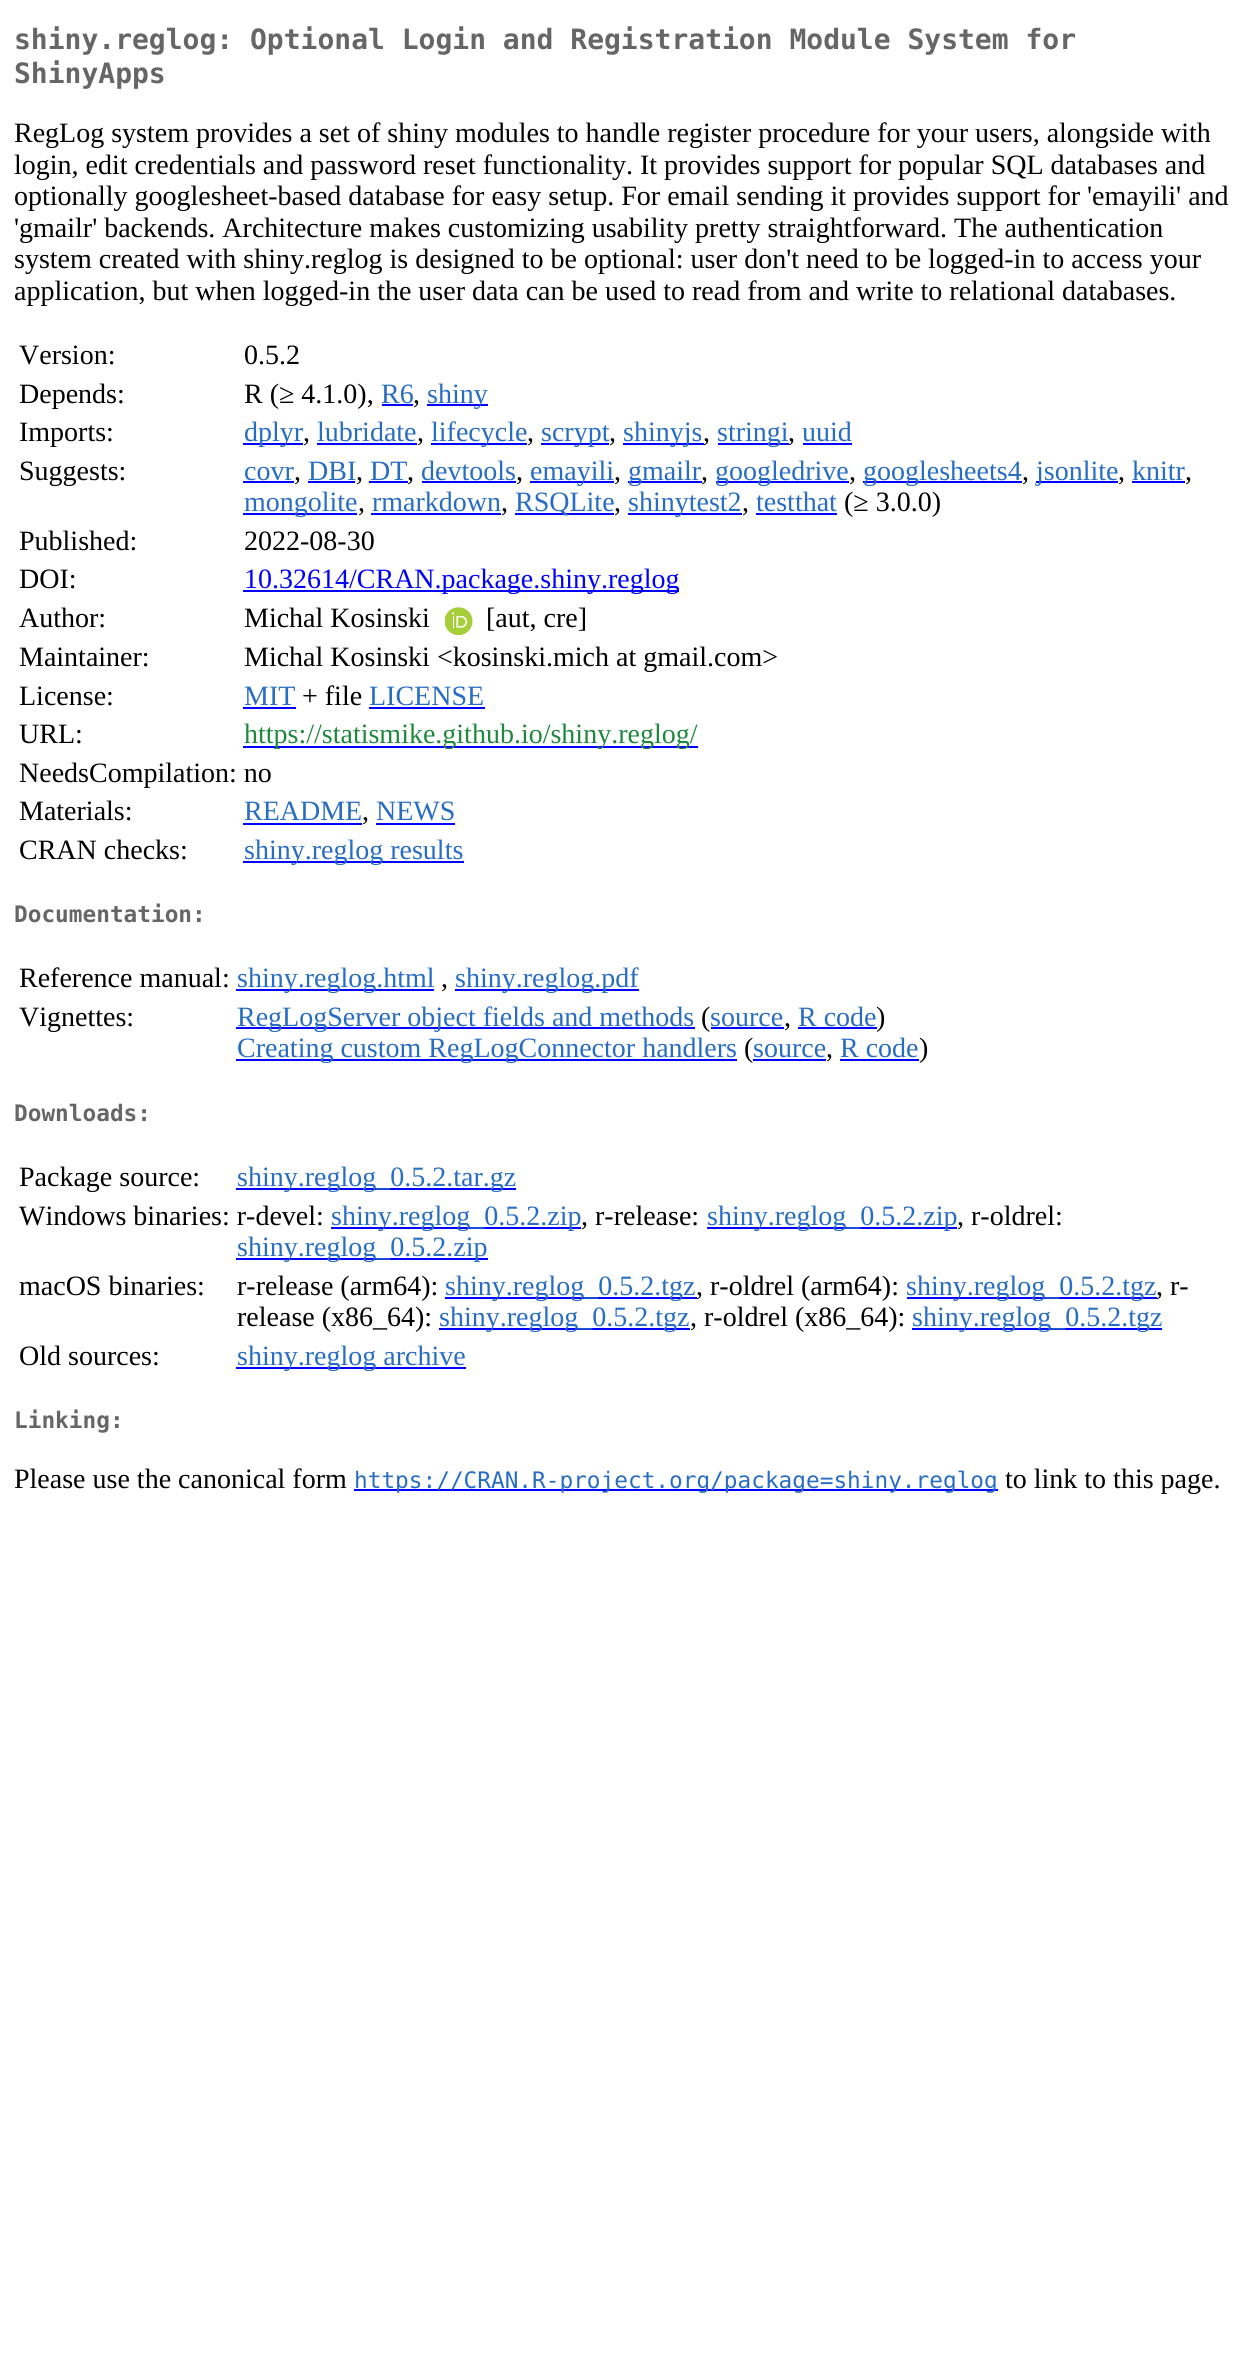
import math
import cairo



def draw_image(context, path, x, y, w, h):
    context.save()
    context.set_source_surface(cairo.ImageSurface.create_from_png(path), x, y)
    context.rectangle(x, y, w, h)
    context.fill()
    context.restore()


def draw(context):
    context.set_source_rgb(1, 1, 1)
    context.paint()
    context.set_source_rgb(0, 0, 1)
    context.rectangle(382, 404, 31, 2)
    context.fill()
    context.rectangle(427, 404, 61, 2)
    context.fill()
    context.rectangle(243, 443, 60, 2)
    context.fill()
    context.rectangle(317, 443, 100, 2)
    context.fill()
    context.rectangle(431, 443, 96, 2)
    context.fill()
    context.rectangle(541, 443, 68, 2)
    context.fill()
    context.rectangle(623, 443, 81, 2)
    context.fill()
    context.rectangle(718, 443, 71, 2)
    context.fill()
    context.rectangle(803, 443, 49, 2)
    context.fill()
    context.rectangle(243, 481, 51, 2)
    context.fill()
    context.rectangle(308, 481, 47, 2)
    context.fill()
    context.rectangle(369, 481, 39, 2)
    context.fill()
    context.rectangle(422, 481, 94, 2)
    context.fill()
    context.rectangle(530, 481, 84, 2)
    context.fill()
    context.rectangle(628, 481, 74, 2)
    context.fill()
    context.rectangle(716, 481, 133, 2)
    context.fill()
    context.rectangle(863, 481, 159, 2)
    context.fill()
    context.rectangle(1036, 481, 82, 2)
    context.fill()
    context.rectangle(1132, 481, 53, 2)
    context.fill()
    context.rectangle(243, 513, 114, 2)
    context.fill()
    context.rectangle(371, 513, 130, 2)
    context.fill()
    context.rectangle(515, 513, 99, 2)
    context.fill()
    context.rectangle(628, 513, 114, 2)
    context.fill()
    context.rectangle(756, 513, 81, 2)
    context.fill()
    context.rectangle(243, 590, 436, 2)
    context.fill()
    draw_image(context, "images/1.png", 445, 607, 28, 28)
    context.rectangle(243, 707, 53, 2)
    context.fill()
    context.rectangle(369, 707, 116, 2)
    context.fill()
    context.rectangle(243, 746, 455, 2)
    context.fill()
    context.rectangle(243, 823, 119, 2)
    context.fill()
    context.rectangle(376, 823, 79, 2)
    context.fill()
    context.rectangle(243, 861, 221, 2)
    context.fill()
    context.rectangle(236, 989, 198, 2)
    context.fill()
    context.rectangle(455, 989, 184, 2)
    context.fill()
    context.rectangle(236, 1027, 459, 2)
    context.fill()
    context.rectangle(711, 1027, 73, 2)
    context.fill()
    context.rectangle(798, 1027, 79, 2)
    context.fill()
    context.rectangle(236, 1059, 501, 2)
    context.fill()
    context.rectangle(753, 1059, 73, 2)
    context.fill()
    context.rectangle(840, 1059, 79, 2)
    context.fill()
    context.rectangle(236, 1188, 280, 2)
    context.fill()
    context.rectangle(331, 1227, 250, 2)
    context.fill()
    context.rectangle(707, 1227, 250, 2)
    context.fill()
    context.rectangle(236, 1258, 252, 2)
    context.fill()
    context.rectangle(445, 1297, 252, 2)
    context.fill()
    context.rectangle(907, 1297, 250, 2)
    context.fill()
    context.rectangle(439, 1328, 251, 2)
    context.fill()
    context.rectangle(912, 1328, 250, 2)
    context.fill()
    context.rectangle(236, 1367, 230, 2)
    context.fill()
    context.rectangle(354, 1489, 644, 2)
    context.fill()
    context.select_font_face("DejaVu Sans Mono", cairo.FontSlant.NORMAL, cairo.FontWeight.BOLD)
    context.set_font_size(28)
    context.set_source_rgb(102 / 255, 102 / 255, 102 / 255)
    context.move_to(14, 49)
    context.show_text("shiny.reglog: Optional Login and Registration Module System for")
    context.move_to(14, 83)
    context.show_text("ShinyApps")
    context.select_font_face("Liberation Serif")
    context.set_source_rgb(0, 0, 0)
    context.move_to(14, 142)
    context.show_text("RegLog system provides a set of shiny modules to handle register procedure for your users, alongside with")
    context.move_to(14, 174)
    context.show_text("login, edit credentials and password reset functionality. It provides support for popular SQL databases and")
    context.move_to(14, 205)
    context.show_text("optionally googlesheet-based database for easy setup. For email sending it provides support for 'emayili' and")
    context.move_to(14, 237)
    context.show_text("'gmailr' backends. Architecture makes customizing usability pretty straightforward. The authentication")
    context.move_to(14, 268)
    context.show_text("system created with shiny.reglog is designed to be optional: user don't need to be logged-in to access your")
    context.move_to(14, 300)
    context.show_text("application, but when logged-in the user data can be used to read from and write to relational databases.")
    context.move_to(19, 364)
    context.show_text("Version:")
    context.move_to(244, 364)
    context.show_text("0.5.2")
    context.move_to(19, 403)
    context.show_text("Depends:")
    context.move_to(244, 403)
    context.show_text("R (≥ 4.1.0),")
    context.set_source_rgb(39 / 255, 109 / 255, 195 / 255)
    context.move_to(381, 403)
    context.show_text("R6")
    context.set_source_rgb(0, 0, 0)
    context.move_to(413, 403)
    context.show_text(",")
    context.set_source_rgb(39 / 255, 109 / 255, 195 / 255)
    context.move_to(427, 403)
    context.show_text("shiny")
    context.set_source_rgb(0, 0, 0)
    context.move_to(19, 441)
    context.show_text("Imports:")
    context.set_source_rgb(39 / 255, 109 / 255, 195 / 255)
    context.move_to(244, 441)
    context.show_text("dplyr")
    context.set_source_rgb(0, 0, 0)
    context.move_to(303, 441)
    context.show_text(",")
    context.set_source_rgb(39 / 255, 109 / 255, 195 / 255)
    context.move_to(317, 441)
    context.show_text("lubridate")
    context.set_source_rgb(0, 0, 0)
    context.move_to(417, 441)
    context.show_text(",")
    context.set_source_rgb(39 / 255, 109 / 255, 195 / 255)
    context.move_to(431, 441)
    context.show_text("lifecycle")
    context.set_source_rgb(0, 0, 0)
    context.move_to(527, 441)
    context.show_text(",")
    context.set_source_rgb(39 / 255, 109 / 255, 195 / 255)
    context.move_to(541, 441)
    context.show_text("scrypt")
    context.set_source_rgb(0, 0, 0)
    context.move_to(609, 441)
    context.show_text(",")
    context.set_source_rgb(39 / 255, 109 / 255, 195 / 255)
    context.move_to(623, 441)
    context.show_text("shinyjs")
    context.set_source_rgb(0, 0, 0)
    context.move_to(703, 441)
    context.show_text(",")
    context.set_source_rgb(39 / 255, 109 / 255, 195 / 255)
    context.move_to(717, 441)
    context.show_text("stringi")
    context.set_source_rgb(0, 0, 0)
    context.move_to(788, 441)
    context.show_text(",")
    context.set_source_rgb(39 / 255, 109 / 255, 195 / 255)
    context.move_to(802, 441)
    context.show_text("uuid")
    context.set_source_rgb(0, 0, 0)
    context.move_to(19, 480)
    context.show_text("Suggests:")
    context.set_source_rgb(39 / 255, 109 / 255, 195 / 255)
    context.move_to(244, 480)
    context.show_text("covr")
    context.set_source_rgb(0, 0, 0)
    context.move_to(294, 480)
    context.show_text(",")
    context.set_source_rgb(39 / 255, 109 / 255, 195 / 255)
    context.move_to(308, 480)
    context.show_text("DBI")
    context.set_source_rgb(0, 0, 0)
    context.move_to(356, 480)
    context.show_text(",")
    context.set_source_rgb(39 / 255, 109 / 255, 195 / 255)
    context.move_to(370, 480)
    context.show_text("DT")
    context.set_source_rgb(0, 0, 0)
    context.move_to(407, 480)
    context.show_text(",")
    context.set_source_rgb(39 / 255, 109 / 255, 195 / 255)
    context.move_to(421, 480)
    context.show_text("devtools")
    context.set_source_rgb(0, 0, 0)
    context.move_to(516, 480)
    context.show_text(",")
    context.set_source_rgb(39 / 255, 109 / 255, 195 / 255)
    context.move_to(530, 480)
    context.show_text("emayili")
    context.set_source_rgb(0, 0, 0)
    context.move_to(614, 480)
    context.show_text(",")
    context.set_source_rgb(39 / 255, 109 / 255, 195 / 255)
    context.move_to(628, 480)
    context.show_text("gmailr")
    context.set_source_rgb(0, 0, 0)
    context.move_to(701, 480)
    context.show_text(",")
    context.set_source_rgb(39 / 255, 109 / 255, 195 / 255)
    context.move_to(715, 480)
    context.show_text("googledrive")
    context.set_source_rgb(0, 0, 0)
    context.move_to(849, 480)
    context.show_text(",")
    context.set_source_rgb(39 / 255, 109 / 255, 195 / 255)
    context.move_to(863, 480)
    context.show_text("googlesheets4")
    context.set_source_rgb(0, 0, 0)
    context.move_to(1022, 480)
    context.show_text(",")
    context.set_source_rgb(39 / 255, 109 / 255, 195 / 255)
    context.move_to(1036, 480)
    context.show_text("jsonlite")
    context.set_source_rgb(0, 0, 0)
    context.move_to(1118, 480)
    context.show_text(",")
    context.set_source_rgb(39 / 255, 109 / 255, 195 / 255)
    context.move_to(1132, 480)
    context.show_text("knitr")
    context.set_source_rgb(0, 0, 0)
    context.move_to(1185, 480)
    context.show_text(",")
    context.set_source_rgb(39 / 255, 109 / 255, 195 / 255)
    context.move_to(244, 511)
    context.show_text("mongolite")
    context.set_source_rgb(0, 0, 0)
    context.move_to(358, 511)
    context.show_text(",")
    context.set_source_rgb(39 / 255, 109 / 255, 195 / 255)
    context.move_to(372, 511)
    context.show_text("rmarkdown")
    context.set_source_rgb(0, 0, 0)
    context.move_to(501, 511)
    context.show_text(",")
    context.set_source_rgb(39 / 255, 109 / 255, 195 / 255)
    context.move_to(515, 511)
    context.show_text("RSQLite")
    context.set_source_rgb(0, 0, 0)
    context.move_to(614, 511)
    context.show_text(",")
    context.set_source_rgb(39 / 255, 109 / 255, 195 / 255)
    context.move_to(628, 511)
    context.show_text("shinytest2")
    context.set_source_rgb(0, 0, 0)
    context.move_to(742, 511)
    context.show_text(",")
    context.set_source_rgb(39 / 255, 109 / 255, 195 / 255)
    context.move_to(756, 511)
    context.show_text("testthat")
    context.set_source_rgb(0, 0, 0)
    context.move_to(844, 511)
    context.show_text("(≥ 3.0.0)")
    context.move_to(19, 550)
    context.show_text("Published:")
    context.move_to(244, 550)
    context.show_text("2022-08-30")
    context.move_to(19, 588)
    context.show_text("DOI:")
    context.set_source_rgb(0, 0, 1)
    context.move_to(244, 588)
    context.show_text("10.32614/CRAN.package.shiny.reglog")
    context.set_source_rgb(0, 0, 0)
    context.move_to(19, 627)
    context.show_text("Author:")
    context.move_to(244, 627)
    context.show_text("Michal Kosinski")
    context.move_to(486, 627)
    context.show_text("[aut, cre]")
    context.move_to(19, 666)
    context.show_text("Maintainer:")
    context.move_to(244, 666)
    context.show_text("Michal Kosinski <kosinski.mich at gmail.com>")
    context.move_to(19, 705)
    context.show_text("License:")
    context.set_source_rgb(39 / 255, 109 / 255, 195 / 255)
    context.move_to(244, 705)
    context.show_text("MIT")
    context.set_source_rgb(0, 0, 0)
    context.move_to(302, 705)
    context.show_text("+ file")
    context.set_source_rgb(39 / 255, 109 / 255, 195 / 255)
    context.move_to(369, 705)
    context.show_text("LICENSE")
    context.set_source_rgb(0, 0, 0)
    context.move_to(19, 743)
    context.show_text("URL:")
    context.set_source_rgb(31 / 255, 136 / 255, 61 / 255)
    context.move_to(244, 743)
    context.show_text("https://statismike.github.io/shiny.reglog/")
    context.set_source_rgb(0, 0, 0)
    context.move_to(19, 782)
    context.show_text("NeedsCompilation: no")
    context.move_to(19, 820)
    context.show_text("Materials:")
    context.set_source_rgb(39 / 255, 109 / 255, 195 / 255)
    context.move_to(244, 820)
    context.show_text("README")
    context.set_source_rgb(0, 0, 0)
    context.move_to(362, 820)
    context.show_text(",")
    context.set_source_rgb(39 / 255, 109 / 255, 195 / 255)
    context.move_to(376, 820)
    context.show_text("NEWS")
    context.set_source_rgb(0, 0, 0)
    context.move_to(19, 859)
    context.show_text("CRAN checks:")
    context.set_source_rgb(39 / 255, 109 / 255, 195 / 255)
    context.move_to(244, 859)
    context.show_text("shiny.reglog results")
    context.select_font_face("DejaVu Sans Mono", cairo.FontSlant.NORMAL, cairo.FontWeight.BOLD)
    context.set_font_size(22.75)
    context.set_source_rgb(102 / 255, 102 / 255, 102 / 255)
    context.move_to(14, 922)
    context.show_text("Documentation:")
    context.select_font_face("Liberation Serif")
    context.set_font_size(28)
    context.set_source_rgb(0, 0, 0)
    context.move_to(19, 987)
    context.show_text("Reference manual:")
    context.set_source_rgb(39 / 255, 109 / 255, 195 / 255)
    context.move_to(237, 987)
    context.show_text("shiny.reglog.html")
    context.set_source_rgb(0, 0, 0)
    context.move_to(441, 987)
    context.show_text(",")
    context.set_source_rgb(39 / 255, 109 / 255, 195 / 255)
    context.move_to(455, 987)
    context.show_text("shiny.reglog.pdf")
    context.set_source_rgb(0, 0, 0)
    context.move_to(19, 1026)
    context.show_text("Vignettes:")
    context.set_source_rgb(39 / 255, 109 / 255, 195 / 255)
    context.move_to(237, 1026)
    context.show_text("RegLogServer object fields and methods")
    context.set_source_rgb(0, 0, 0)
    context.move_to(701, 1026)
    context.show_text("(")
    context.set_source_rgb(39 / 255, 109 / 255, 195 / 255)
    context.move_to(710, 1026)
    context.show_text("source")
    context.set_source_rgb(0, 0, 0)
    context.move_to(784, 1026)
    context.show_text(",")
    context.set_source_rgb(39 / 255, 109 / 255, 195 / 255)
    context.move_to(798, 1026)
    context.show_text("R code")
    context.set_source_rgb(0, 0, 0)
    context.move_to(876, 1026)
    context.show_text(")")
    context.set_source_rgb(39 / 255, 109 / 255, 195 / 255)
    context.move_to(237, 1057)
    context.show_text("Creating custom RegLogConnector handlers")
    context.set_source_rgb(0, 0, 0)
    context.move_to(744, 1057)
    context.show_text("(")
    context.set_source_rgb(39 / 255, 109 / 255, 195 / 255)
    context.move_to(753, 1057)
    context.show_text("source")
    context.set_source_rgb(0, 0, 0)
    context.move_to(826, 1057)
    context.show_text(",")
    context.set_source_rgb(39 / 255, 109 / 255, 195 / 255)
    context.move_to(840, 1057)
    context.show_text("R code")
    context.set_source_rgb(0, 0, 0)
    context.move_to(919, 1057)
    context.show_text(")")
    context.select_font_face("DejaVu Sans Mono", cairo.FontSlant.NORMAL, cairo.FontWeight.BOLD)
    context.set_font_size(22.75)
    context.set_source_rgb(102 / 255, 102 / 255, 102 / 255)
    context.move_to(14, 1121)
    context.show_text("Downloads:")
    context.select_font_face("Liberation Serif")
    context.set_font_size(28)
    context.set_source_rgb(0, 0, 0)
    context.move_to(19, 1186)
    context.show_text("Package source:")
    context.set_source_rgb(39 / 255, 109 / 255, 195 / 255)
    context.move_to(237, 1186)
    context.show_text("shiny.reglog_0.5.2.tar.gz")
    context.set_source_rgb(0, 0, 0)
    context.move_to(19, 1225)
    context.show_text("Windows binaries: r-devel:")
    context.set_source_rgb(39 / 255, 109 / 255, 195 / 255)
    context.move_to(331, 1225)
    context.show_text("shiny.reglog_0.5.2.zip")
    context.set_source_rgb(0, 0, 0)
    context.move_to(581, 1225)
    context.show_text(", r-release:")
    context.set_source_rgb(39 / 255, 109 / 255, 195 / 255)
    context.move_to(707, 1225)
    context.show_text("shiny.reglog_0.5.2.zip")
    context.set_source_rgb(0, 0, 0)
    context.move_to(957, 1225)
    context.show_text(", r-oldrel:")
    context.set_source_rgb(39 / 255, 109 / 255, 195 / 255)
    context.move_to(237, 1256)
    context.show_text("shiny.reglog_0.5.2.zip")
    context.set_source_rgb(0, 0, 0)
    context.move_to(19, 1295)
    context.show_text("macOS binaries:")
    context.move_to(237, 1295)
    context.show_text("r-release (arm64):")
    context.set_source_rgb(39 / 255, 109 / 255, 195 / 255)
    context.move_to(445, 1295)
    context.show_text("shiny.reglog_0.5.2.tgz")
    context.set_source_rgb(0, 0, 0)
    context.move_to(696, 1295)
    context.show_text(", r-oldrel (arm64):")
    context.set_source_rgb(39 / 255, 109 / 255, 195 / 255)
    context.move_to(906, 1295)
    context.show_text("shiny.reglog_0.5.2.tgz")
    context.set_source_rgb(0, 0, 0)
    context.move_to(1156, 1295)
    context.show_text(", r-")
    context.move_to(237, 1326)
    context.show_text("release (x86_64):")
    context.set_source_rgb(39 / 255, 109 / 255, 195 / 255)
    context.move_to(439, 1326)
    context.show_text("shiny.reglog_0.5.2.tgz")
    context.set_source_rgb(0, 0, 0)
    context.move_to(690, 1326)
    context.show_text(", r-oldrel (x86_64):")
    context.set_source_rgb(39 / 255, 109 / 255, 195 / 255)
    context.move_to(912, 1326)
    context.show_text("shiny.reglog_0.5.2.tgz")
    context.set_source_rgb(0, 0, 0)
    context.move_to(19, 1365)
    context.show_text("Old sources:")
    context.set_source_rgb(39 / 255, 109 / 255, 195 / 255)
    context.move_to(237, 1365)
    context.show_text("shiny.reglog archive")
    context.select_font_face("DejaVu Sans Mono", cairo.FontSlant.NORMAL, cairo.FontWeight.BOLD)
    context.set_font_size(22.75)
    context.set_source_rgb(102 / 255, 102 / 255, 102 / 255)
    context.move_to(14, 1428)
    context.show_text("Linking:")
    context.select_font_face("Liberation Serif")
    context.set_font_size(28)
    context.set_source_rgb(0, 0, 0)
    context.move_to(14, 1488)
    context.show_text("Please use the canonical form")
    context.select_font_face("DejaVu Sans Mono")
    context.set_font_size(22.75)
    context.set_source_rgb(39 / 255, 109 / 255, 195 / 255)
    context.move_to(354, 1488)
    context.show_text("https://CRAN.R-project.org/package=shiny.reglog")
    context.select_font_face("Liberation Serif")
    context.set_font_size(28)
    context.set_source_rgb(0, 0, 0)
    context.move_to(1005, 1488)
    context.show_text("to link to this page.")


surface = cairo.ImageSurface(cairo.Format.RGB24, 1258, 2361)
context = cairo.Context(surface)
options = cairo.FontOptions()
options.set_hint_metrics(cairo.HintMetrics.OFF)
options.set_hint_style(cairo.HintStyle.NONE)
context.set_font_options(options)
context.set_miter_limit(4)
draw(context)
surface.write_to_png("out.png")
